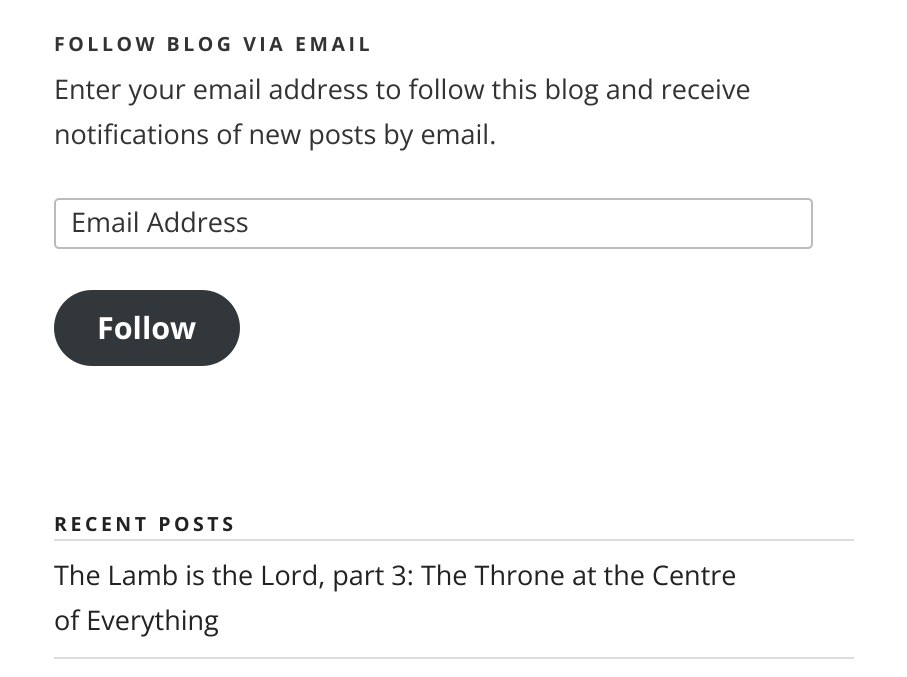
import math
import cairo



def draw_spaced(context, x, y, s, letter, word):
    context.move_to(x, y)
    for ch in s:
        context.show_text(ch)
        context.rel_move_to(letter + word * (ch == ' '), 0)


def rounded_rect(context, x, y, w, h, r):
    context.new_sub_path()
    for i, (u, v) in enumerate([(x + w - r, y + h - r), (x + r, y + h - r), (x + r, y + r), (x + w - r, y + r)]):
        context.arc(u, v, r, i * math.pi / 2, (i + 1) * math.pi / 2)
    context.close_path()


def draw(context):
    context.set_source_rgb(1, 1, 1)
    context.paint()
    rounded_rect(context, 55, 199, 757, 49, 4)
    context.set_source_rgb(187 / 255, 187 / 255, 187 / 255)
    context.stroke()
    context.set_source_rgb(50 / 255, 55 / 255, 60 / 255)
    rounded_rect(context, 54, 290, 186, 76, 38)
    context.fill()
    context.set_source_rgb(221 / 255, 221 / 255, 221 / 255)
    context.rectangle(54, 539, 800, 2)
    context.fill()
    context.rectangle(54, 657, 800, 2)
    context.fill()
    context.select_font_face("Open Sans", cairo.FontSlant.NORMAL, cairo.FontWeight.BOLD)
    context.set_font_size(19.5)
    context.set_source_rgb(51 / 255, 51 / 255, 51 / 255)
    draw_spaced(context, 54, 51, "FOLLOW BLOG VIA EMAIL", 3.55, 0)
    context.select_font_face("Open Sans")
    context.set_font_size(27)
    context.move_to(54, 99)
    context.show_text("Enter your email address to follow this blog and receive")
    context.move_to(54, 144)
    context.show_text("notifications of new posts by email.")
    context.move_to(71, 232)
    context.show_text("Email Address")
    context.select_font_face("Open Sans", cairo.FontSlant.NORMAL, cairo.FontWeight.BOLD)
    context.set_font_size(30.5)
    context.set_source_rgb(1, 1, 1)
    context.move_to(97, 339)
    context.show_text("Follow")
    context.set_font_size(19.5)
    context.set_source_rgb(34 / 255, 34 / 255, 34 / 255)
    draw_spaced(context, 54, 531, "RECENT POSTS", 3.55, 0)
    context.select_font_face("Open Sans")
    context.set_font_size(27)
    context.move_to(54, 585)
    context.show_text("The Lamb is the Lord, part 3: The Throne at the Centre")
    context.move_to(54, 630)
    context.show_text("of Everything")


surface = cairo.ImageSurface(cairo.Format.RGB24, 907, 677)
context = cairo.Context(surface)
options = cairo.FontOptions()
options.set_hint_metrics(cairo.HintMetrics.OFF)
options.set_hint_style(cairo.HintStyle.NONE)
context.set_font_options(options)
context.set_miter_limit(4)
draw(context)
surface.write_to_png("out.png")
